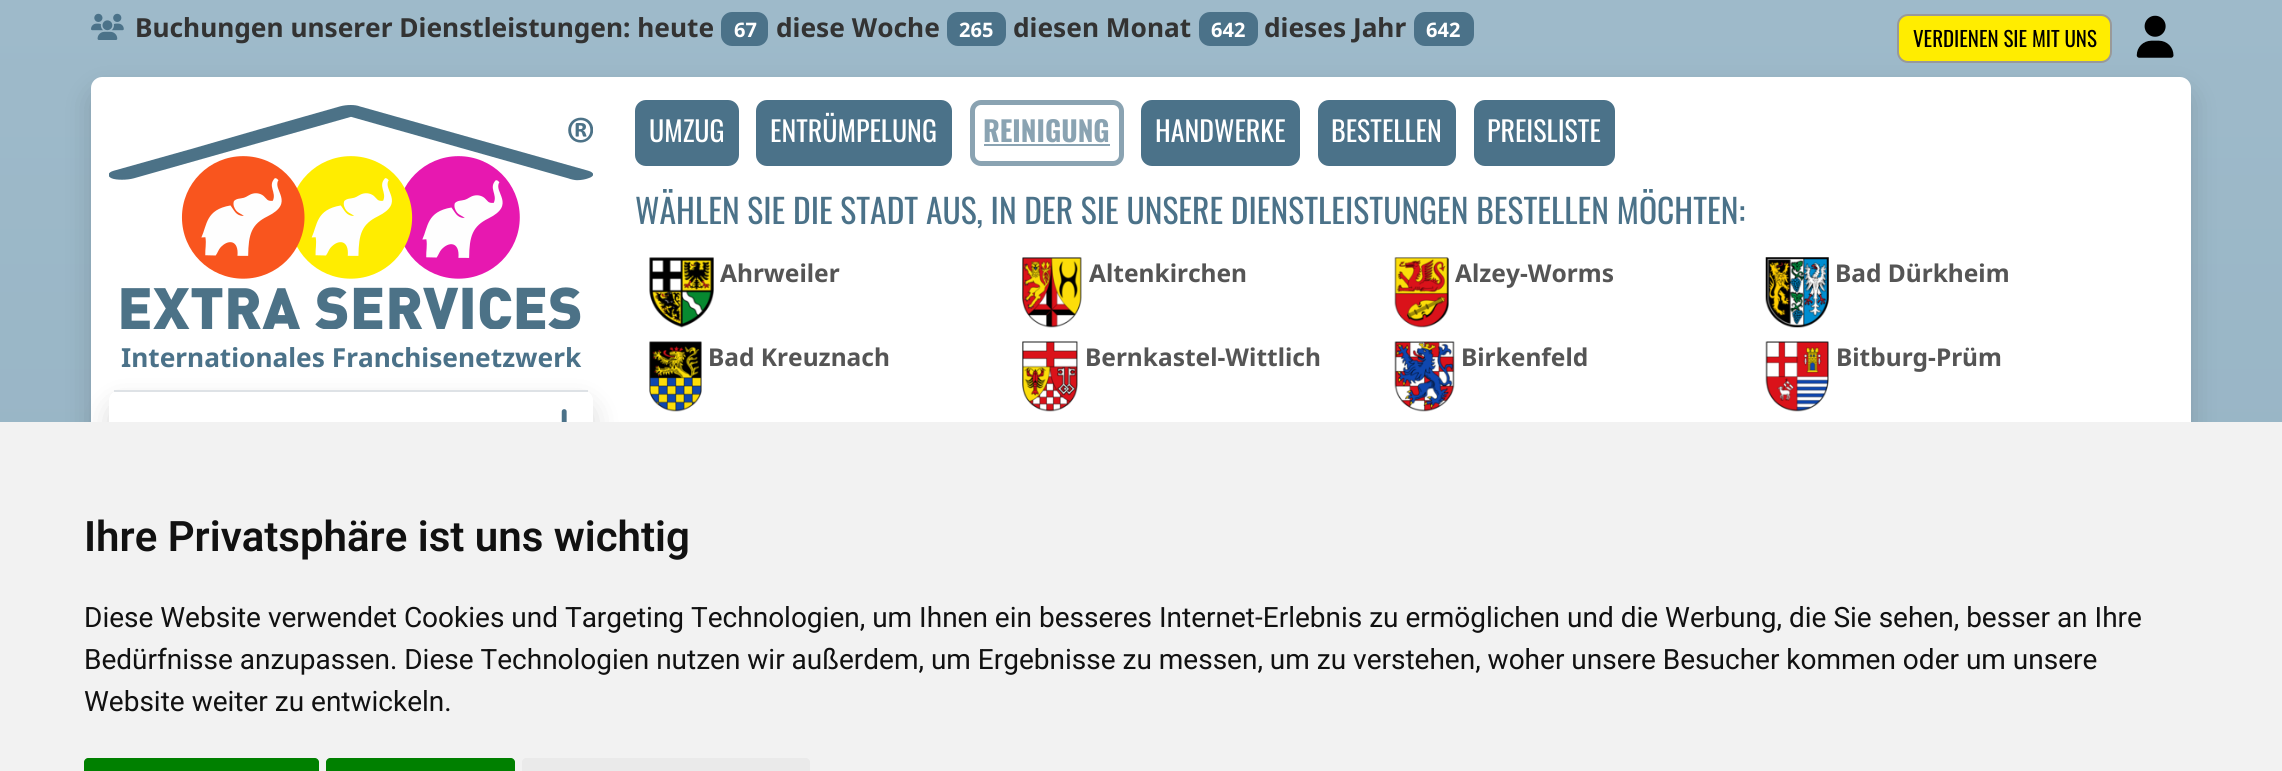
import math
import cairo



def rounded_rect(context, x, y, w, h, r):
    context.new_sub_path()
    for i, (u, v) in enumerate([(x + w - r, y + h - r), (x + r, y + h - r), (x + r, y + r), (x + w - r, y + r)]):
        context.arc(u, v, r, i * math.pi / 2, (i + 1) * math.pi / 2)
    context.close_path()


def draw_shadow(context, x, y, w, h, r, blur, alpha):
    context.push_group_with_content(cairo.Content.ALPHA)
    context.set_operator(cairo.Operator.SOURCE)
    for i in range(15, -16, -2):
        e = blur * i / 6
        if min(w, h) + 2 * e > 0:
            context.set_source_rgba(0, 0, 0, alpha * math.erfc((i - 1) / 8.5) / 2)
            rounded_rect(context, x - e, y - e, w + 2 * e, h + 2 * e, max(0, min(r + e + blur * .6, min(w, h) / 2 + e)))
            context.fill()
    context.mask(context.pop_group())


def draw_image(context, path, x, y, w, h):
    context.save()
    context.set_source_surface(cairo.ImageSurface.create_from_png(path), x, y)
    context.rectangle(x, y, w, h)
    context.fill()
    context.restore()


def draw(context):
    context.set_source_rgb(1, 1, 1)
    context.paint()
    gradient = cairo.LinearGradient(1141, 0, 1141, 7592)
    gradient.add_color_stop_rgba(0, 158 / 255, 186 / 255, 202 / 255, 1)
    gradient.add_color_stop_rgba(1, 75 / 255, 114 / 255, 137 / 255, 1)
    context.set_source(gradient)
    context.rectangle(0, 0, 2282, 422)
    context.fill()
    draw_image(context, "images/1.png", 91, 13, 33, 27)
    context.set_source_rgb(75 / 255, 114 / 255, 137 / 255)
    rounded_rect(context, 721, 12, 47, 34, 11)
    context.fill()
    rounded_rect(context, 947, 12, 59, 34, 11)
    context.fill()
    rounded_rect(context, 1199, 12, 59, 34, 11)
    context.fill()
    rounded_rect(context, 1414, 12, 60, 34, 11)
    context.fill()
    context.set_source_rgb(0, 0, 0)
    draw_shadow(context, 91, 91, 2100, 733, 11, 14, 0.15)
    context.set_source_rgb(1, 237 / 255, 0)
    rounded_rect(context, 1898, 15, 213, 47, 10)
    context.fill_preserve()
    context.set_source_rgb(153 / 255, 153 / 255, 153 / 255)
    context.stroke()
    draw_image(context, "images/2.png", 2136, 15, 38, 43)
    context.set_source_rgb(1, 1, 1)
    context.new_path()
    context.move_to(102, 77)
    context.line_to(2180, 77)
    context.curve_to(2186, 77, 2191, 82, 2191, 88)
    context.line_to(2191, 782)
    context.line_to(91, 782)
    context.line_to(91, 88)
    context.curve_to(91, 82, 96, 77, 102, 77)
    context.close_path()
    context.fill()
    draw_image(context, "images/3.png", 109, 105, 484, 224)
    context.save()
    context.set_fill_rule(cairo.FillRule.EVEN_ODD)
    context.new_path()
    context.move_to(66, 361)
    context.line_to(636, 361)
    context.line_to(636, 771)
    context.line_to(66, 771)
    context.close_path()
    context.move_to(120, 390)
    context.line_to(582, 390)
    context.curve_to(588, 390, 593, 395, 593, 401)
    context.line_to(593, 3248)
    context.curve_to(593, 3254, 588, 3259, 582, 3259)
    context.line_to(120, 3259)
    context.curve_to(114, 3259, 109, 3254, 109, 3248)
    context.line_to(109, 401)
    context.curve_to(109, 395, 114, 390, 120, 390)
    context.close_path()
    context.clip()
    context.set_source_rgb(0, 0, 0)
    draw_shadow(context, 109, 404, 484, 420, 11, 14, 0.15)
    context.restore()
    context.set_source_rgb(222 / 255, 226 / 255, 230 / 255)
    context.rectangle(114, 390, 474, 2)
    context.fill()
    draw_image(context, "images/4.png", 561, 409, 6, 13)
    context.set_source_rgb(75 / 255, 114 / 255, 137 / 255)
    rounded_rect(context, 637.5, 102.5, 99, 61, 8.5)
    context.fill_preserve()
    context.set_line_width(5)
    context.stroke()
    rounded_rect(context, 758.5, 102.5, 191, 61, 8.5)
    context.fill_preserve()
    context.stroke()
    rounded_rect(context, 972.5, 102.5, 149, 61, 8.5)
    context.set_source_rgb(138 / 255, 163 / 255, 178 / 255)
    context.stroke()
    context.rectangle(984, 144, 126, 2)
    context.fill()
    context.set_source_rgb(75 / 255, 114 / 255, 137 / 255)
    rounded_rect(context, 1143.5, 102.5, 154, 61, 8.5)
    context.fill_preserve()
    context.stroke()
    rounded_rect(context, 1320.5, 102.5, 133, 61, 8.5)
    context.fill_preserve()
    context.stroke()
    rounded_rect(context, 1476.5, 102.5, 136, 61, 8.5)
    context.fill_preserve()
    context.stroke()
    draw_image(context, "images/5.png", 649, 257, 65, 71)
    draw_image(context, "images/6.png", 1022, 257, 60, 71)
    draw_image(context, "images/7.png", 1394, 257, 55, 71)
    draw_image(context, "images/8.png", 1765, 257, 64, 71)
    draw_image(context, "images/9.png", 649, 341, 53, 71)
    draw_image(context, "images/10.png", 1022, 341, 56, 71)
    draw_image(context, "images/11.png", 1394, 341, 61, 71)
    draw_image(context, "images/12.png", 1765, 341, 64, 71)
    context.set_source_rgb(242 / 255, 242 / 255, 242 / 255)
    context.rectangle(0, 422, 2282, 349)
    context.fill()
    context.set_source_rgb(0, 128 / 255, 0)
    context.new_path()
    context.move_to(88, 758)
    context.line_to(315, 758)
    context.curve_to(317, 758, 319, 760, 319, 762)
    context.line_to(319, 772)
    context.line_to(84, 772)
    context.line_to(84, 762)
    context.curve_to(84, 760, 86, 758, 88, 758)
    context.close_path()
    context.fill()
    context.new_path()
    context.move_to(330, 758)
    context.line_to(511, 758)
    context.curve_to(513, 758, 515, 760, 515, 762)
    context.line_to(515, 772)
    context.line_to(326, 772)
    context.line_to(326, 762)
    context.curve_to(326, 760, 328, 758, 330, 758)
    context.close_path()
    context.fill()
    context.set_source_rgb(234 / 255, 234 / 255, 234 / 255)
    context.new_path()
    context.move_to(526, 758)
    context.line_to(806, 758)
    context.curve_to(808, 758, 810, 760, 810, 762)
    context.line_to(810, 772)
    context.line_to(522, 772)
    context.line_to(522, 762)
    context.curve_to(522, 760, 524, 758, 526, 758)
    context.close_path()
    context.fill()
    context.select_font_face("Noto Sans", cairo.FontSlant.NORMAL, cairo.FontWeight.BOLD)
    context.set_font_size(26.25)
    context.set_source_rgb(51 / 255, 51 / 255, 51 / 255)
    context.move_to(135, 37)
    context.show_text("Buchungen unserer Dienstleistungen: heute")
    context.set_font_size(20)
    context.set_source_rgb(1, 1, 1)
    context.move_to(734, 37)
    context.show_text("67")
    context.set_font_size(26.25)
    context.set_source_rgb(51 / 255, 51 / 255, 51 / 255)
    context.move_to(776, 37)
    context.show_text("diese Woche")
    context.set_font_size(20)
    context.set_source_rgb(1, 1, 1)
    context.move_to(959, 37)
    context.show_text("265")
    context.set_font_size(26.25)
    context.set_source_rgb(51 / 255, 51 / 255, 51 / 255)
    context.move_to(1013, 37)
    context.show_text("diesen Monat")
    context.set_font_size(20)
    context.set_source_rgb(1, 1, 1)
    context.move_to(1211, 37)
    context.show_text("642")
    context.set_font_size(26.25)
    context.set_source_rgb(51 / 255, 51 / 255, 51 / 255)
    context.move_to(1264, 37)
    context.show_text("dieses Jahr")
    context.set_font_size(20)
    context.set_source_rgb(1, 1, 1)
    context.move_to(1426, 37)
    context.show_text("642")
    context.select_font_face("Oswald")
    context.set_font_size(21)
    context.set_source_rgb(0, 0, 0)
    context.move_to(1913, 47)
    context.show_text("VERDIENEN SIE MIT UNS")
    context.select_font_face("Noto Sans", cairo.FontSlant.NORMAL, cairo.FontWeight.BOLD)
    context.set_font_size(26.25)
    context.set_source_rgb(75 / 255, 114 / 255, 137 / 255)
    context.move_to(121, 367)
    context.show_text("Internationales Franchisenetzwerk")
    context.select_font_face("Oswald")
    context.set_font_size(28)
    context.set_source_rgb(1, 1, 1)
    context.move_to(649, 142)
    context.show_text("UMZUG")
    context.move_to(770, 142)
    context.show_text("ENTRÜMPELUNG")
    context.select_font_face("Oswald", cairo.FontSlant.NORMAL, cairo.FontWeight.BOLD)
    context.set_source_rgb(138 / 255, 163 / 255, 178 / 255)
    context.move_to(983, 142)
    context.show_text("REINIGUNG")
    context.select_font_face("Oswald")
    context.set_source_rgb(1, 1, 1)
    context.move_to(1155, 142)
    context.show_text("HANDWERKE")
    context.move_to(1331, 142)
    context.show_text("BESTELLEN")
    context.move_to(1487, 142)
    context.show_text("PREISLISTE")
    context.set_font_size(33.6)
    context.set_source_rgb(75 / 255, 114 / 255, 137 / 255)
    context.move_to(635, 224)
    context.show_text("WÄHLEN SIE DIE STADT AUS, IN DER SIE UNSERE DIENSTLEISTUNGEN BESTELLEN MÖCHTEN:")
    context.select_font_face("Noto Sans", cairo.FontSlant.NORMAL, cairo.FontWeight.BOLD)
    context.set_font_size(24.5)
    context.set_source_rgb(85 / 255, 85 / 255, 85 / 255)
    context.move_to(720, 282)
    context.show_text("Ahrweiler")
    context.move_to(1089, 282)
    context.show_text("Altenkirchen")
    context.move_to(1455, 282)
    context.show_text("Alzey-Worms")
    context.move_to(1835, 282)
    context.show_text("Bad Dürkheim")
    context.move_to(708, 366)
    context.show_text("Bad Kreuznach")
    context.move_to(1085, 366)
    context.show_text("Bernkastel-Wittlich")
    context.move_to(1461, 366)
    context.show_text("Birkenfeld")
    context.move_to(1836, 366)
    context.show_text("Bitburg-Prüm")
    context.select_font_face("Roboto SemiBold")
    context.set_font_size(42)
    context.set_source_rgb(17 / 255, 17 / 255, 17 / 255)
    context.move_to(84, 551)
    context.show_text("Ihre Privatsphäre ist uns wichtig")
    context.select_font_face("Roboto")
    context.set_font_size(28)
    context.move_to(84, 627)
    context.show_text("Diese Website verwendet Cookies und Targeting Technologien, um Ihnen ein besseres Internet-Erlebnis zu ermöglichen und die Werbung, die Sie sehen, besser an Ihre")
    context.move_to(84, 669)
    context.show_text("Bedürfnisse anzupassen. Diese Technologien nutzen wir außerdem, um Ergebnisse zu messen, um zu verstehen, woher unsere Besucher kommen oder um unsere")
    context.move_to(84, 711)
    context.show_text("Website weiter zu entwickeln.")


surface = cairo.ImageSurface(cairo.Format.RGB24, 2282, 771)
context = cairo.Context(surface)
options = cairo.FontOptions()
options.set_hint_metrics(cairo.HintMetrics.OFF)
options.set_hint_style(cairo.HintStyle.NONE)
context.set_font_options(options)
context.set_miter_limit(4)
draw(context)
surface.write_to_png("out.png")
